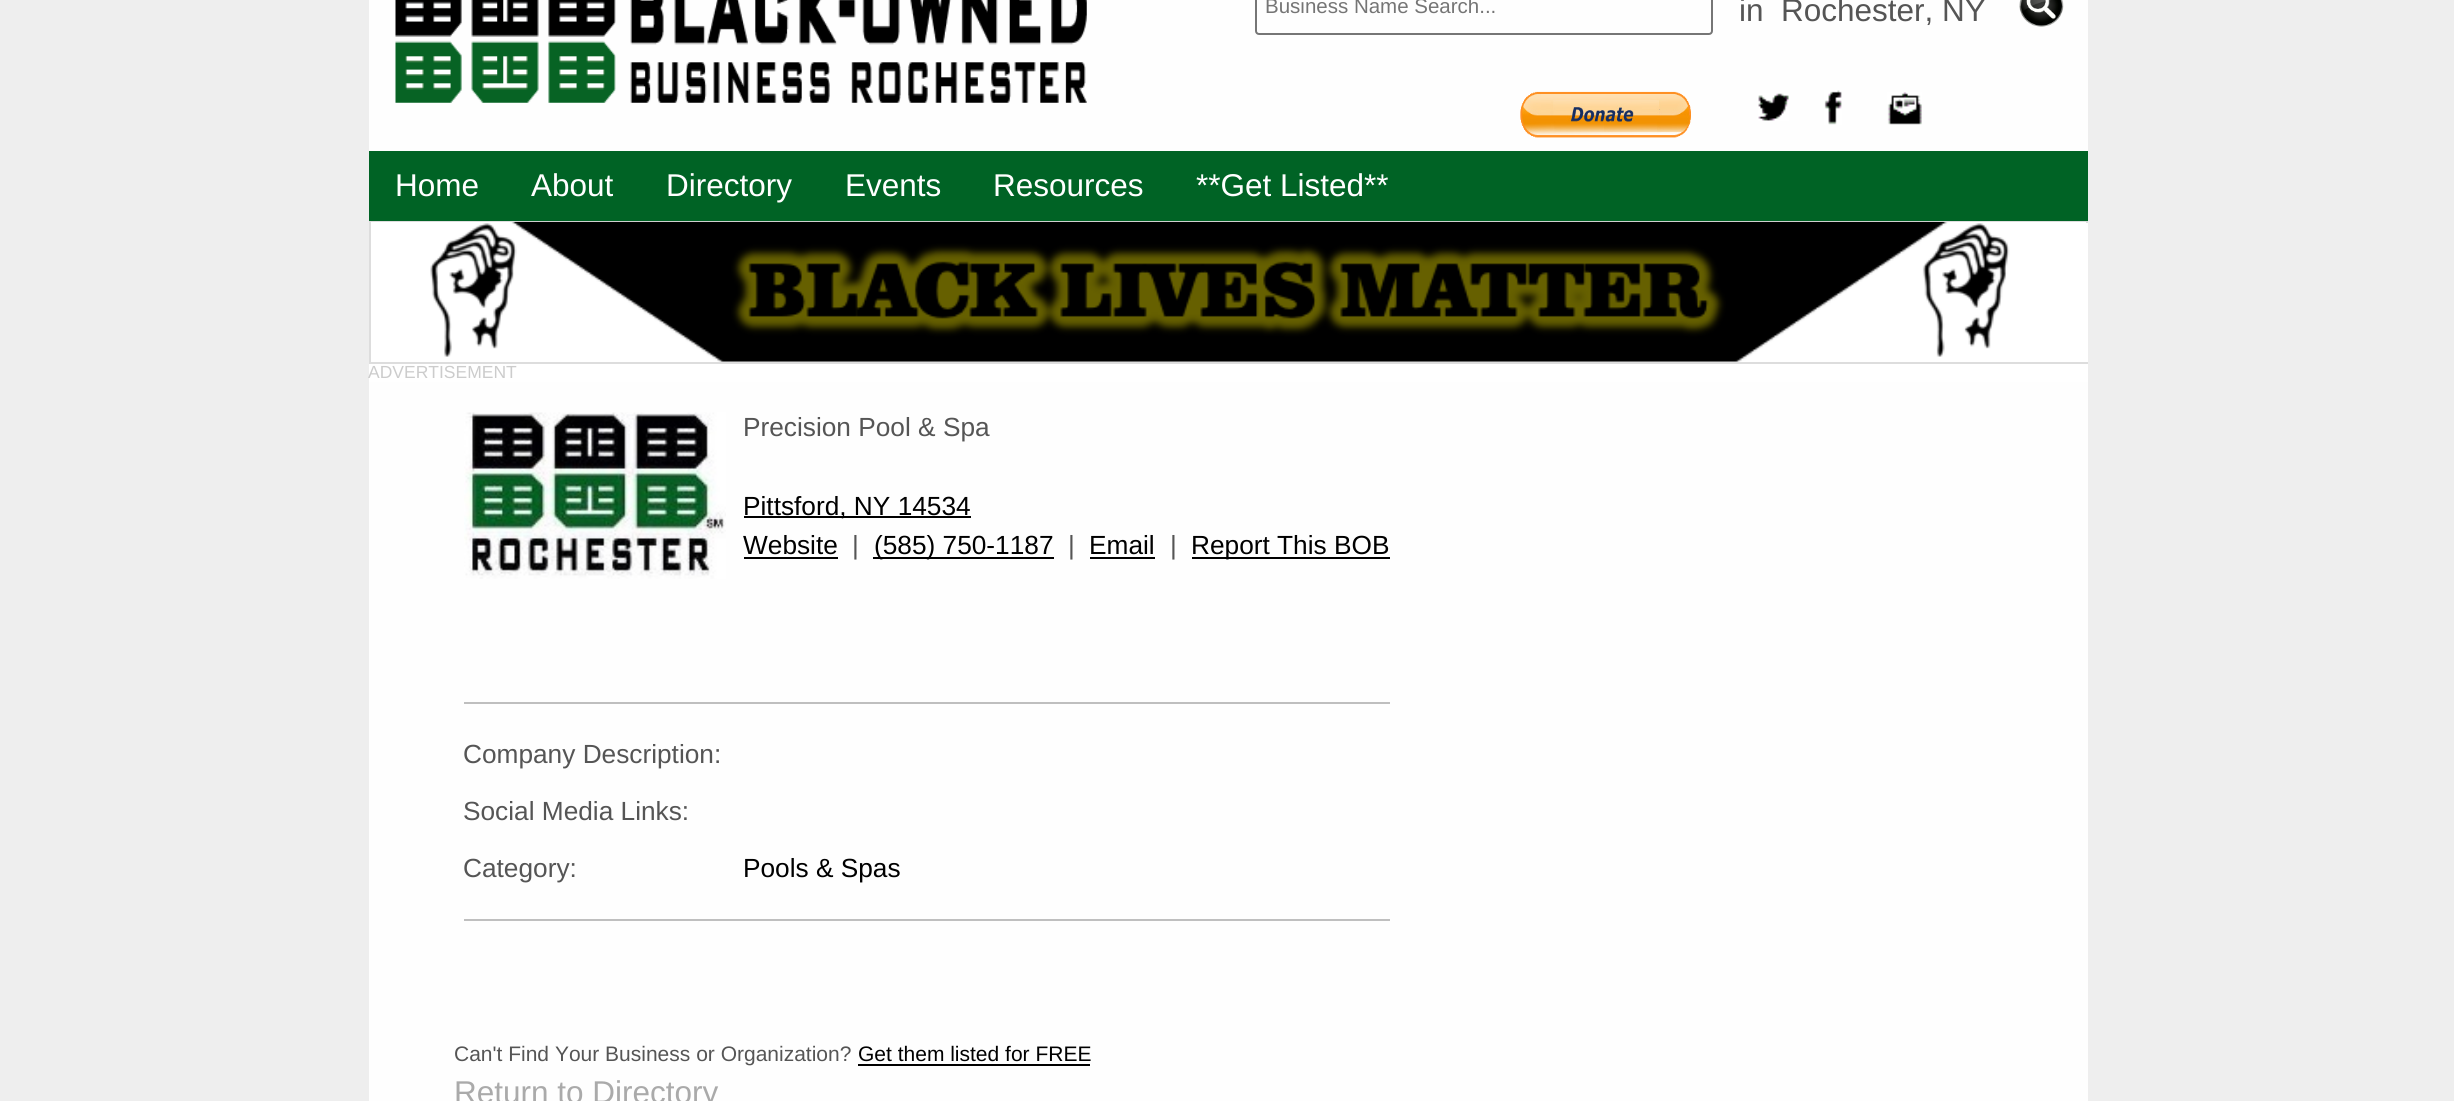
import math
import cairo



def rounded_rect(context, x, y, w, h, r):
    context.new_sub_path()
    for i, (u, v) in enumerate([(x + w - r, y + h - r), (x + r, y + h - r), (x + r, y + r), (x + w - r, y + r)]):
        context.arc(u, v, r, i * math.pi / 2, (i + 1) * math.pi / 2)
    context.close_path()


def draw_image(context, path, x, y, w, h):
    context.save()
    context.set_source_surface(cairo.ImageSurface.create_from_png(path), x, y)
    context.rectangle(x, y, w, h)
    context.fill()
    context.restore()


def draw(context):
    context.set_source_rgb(238 / 255, 238 / 255, 238 / 255)
    context.paint()
    context.set_source_rgb(254 / 255, 254 / 255, 254 / 255)
    context.rectangle(369, 0, 1719, 151)
    context.fill()
    draw_image(context, "images/1.png", 395, 0, 692, 103)
    rounded_rect(context, 1256, -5, 456, 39, 3)
    context.set_source_rgb(118 / 255, 118 / 255, 118 / 255)
    context.stroke()
    draw_image(context, "images/2.png", 2019, 0, 45, 27)
    draw_image(context, "images/3.png", 1520, 91, 171, 47)
    draw_image(context, "images/4.png", 1758, 93, 31, 28)
    draw_image(context, "images/5.png", 1824, 90, 18, 35)
    draw_image(context, "images/6.png", 1887, 92, 35, 33)
    context.set_source_rgb(0, 99 / 255, 37 / 255)
    context.rectangle(369, 151, 1719, 70)
    context.fill()
    context.set_source_rgb(1, 1, 1)
    context.rectangle(369, 223, 1719, 159)
    context.fill()
    context.save()
    context.rectangle(369, 0, 1719, 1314)
    context.clip()
    context.rectangle(370, 222, 1720, 141)
    context.set_source_rgb(221 / 255, 221 / 255, 221 / 255)
    context.stroke()
    context.restore()
    context.rectangle(371, 222, 1715, 1)
    context.fill()
    draw_image(context, "images/7.png", 430, 221, 1580, 141)
    context.set_source_rgb(254 / 255, 254 / 255, 254 / 255)
    context.rectangle(369, 382, 1719, 719)
    context.fill()
    draw_image(context, "images/8.png", 464, 412, 262, 167)
    context.set_source_rgb(0, 0, 0)
    context.rectangle(744, 516, 227, 2)
    context.fill()
    context.rectangle(744, 557, 94, 2)
    context.fill()
    context.rectangle(873, 557, 181, 2)
    context.fill()
    context.rectangle(1090, 557, 65, 2)
    context.fill()
    context.rectangle(1192, 557, 198, 2)
    context.fill()
    context.set_source_rgb(191 / 255, 191 / 255, 191 / 255)
    context.rectangle(464, 702, 926, 2)
    context.fill()
    context.rectangle(464, 919, 926, 2)
    context.fill()
    context.set_source_rgb(0, 0, 0)
    context.rectangle(858, 1064, 232, 2)
    context.fill()
    context.select_font_face("Liberation Sans")
    context.set_font_size(20.5)
    context.set_source_rgb(117 / 255, 117 / 255, 117 / 255)
    context.move_to(1265, 13)
    context.show_text("Business Name Search...")
    context.set_font_size(31.5)
    context.set_source_rgb(85 / 255, 85 / 255, 85 / 255)
    context.move_to(1739, 21)
    context.show_text("in  Rochester, NY")
    context.set_source_rgb(1, 1, 1)
    context.move_to(395, 196)
    context.show_text("Home")
    context.move_to(531, 196)
    context.show_text("About")
    context.move_to(666, 196)
    context.show_text("Directory")
    context.move_to(845, 196)
    context.show_text("Events")
    context.move_to(993, 196)
    context.show_text("Resources")
    context.move_to(1196, 196)
    context.show_text("**Get Listed**")
    context.set_font_size(17.5)
    context.set_source_rgb(204 / 255, 204 / 255, 204 / 255)
    context.move_to(368, 378)
    context.show_text("ADVERTISEMENT")
    context.set_font_size(26.25)
    context.set_source_rgb(85 / 255, 85 / 255, 85 / 255)
    context.move_to(743, 436)
    context.show_text("Precision Pool & Spa")
    context.set_source_rgb(0, 0, 0)
    context.move_to(743, 515)
    context.show_text("Pittsford, NY 14534")
    context.move_to(743, 554)
    context.show_text("Website")
    context.set_source_rgb(85 / 255, 85 / 255, 85 / 255)
    context.move_to(852, 554)
    context.show_text("|")
    context.set_source_rgb(0, 0, 0)
    context.move_to(874, 554)
    context.show_text("(585) 750-1187")
    context.set_source_rgb(85 / 255, 85 / 255, 85 / 255)
    context.move_to(1068, 554)
    context.show_text("|")
    context.set_source_rgb(0, 0, 0)
    context.move_to(1089, 554)
    context.show_text("Email")
    context.set_source_rgb(85 / 255, 85 / 255, 85 / 255)
    context.move_to(1170, 554)
    context.show_text("|")
    context.set_source_rgb(0, 0, 0)
    context.move_to(1191, 554)
    context.show_text("Report This BOB")
    context.set_source_rgb(85 / 255, 85 / 255, 85 / 255)
    context.move_to(463, 763)
    context.show_text("Company Description:")
    context.move_to(463, 820)
    context.show_text("Social Media Links:")
    context.move_to(463, 877)
    context.show_text("Category:")
    context.set_source_rgb(0, 0, 0)
    context.move_to(743, 877)
    context.show_text("Pools & Spas")
    context.set_font_size(21)
    context.set_source_rgb(85 / 255, 85 / 255, 85 / 255)
    context.move_to(454, 1061)
    context.show_text("Can't Find Your Business or Organization?")
    context.set_source_rgb(0, 0, 0)
    context.move_to(858, 1061)
    context.show_text("Get them listed for FREE")
    context.set_font_size(31.5)
    context.set_source_rgb(170 / 255, 170 / 255, 170 / 255)
    context.move_to(454, 1103)
    context.show_text("Return to Directory")


surface = cairo.ImageSurface(cairo.Format.RGB24, 2454, 1101)
context = cairo.Context(surface)
options = cairo.FontOptions()
options.set_hint_metrics(cairo.HintMetrics.OFF)
options.set_hint_style(cairo.HintStyle.NONE)
context.set_font_options(options)
context.set_miter_limit(4)
draw(context)
surface.write_to_png("out.png")
